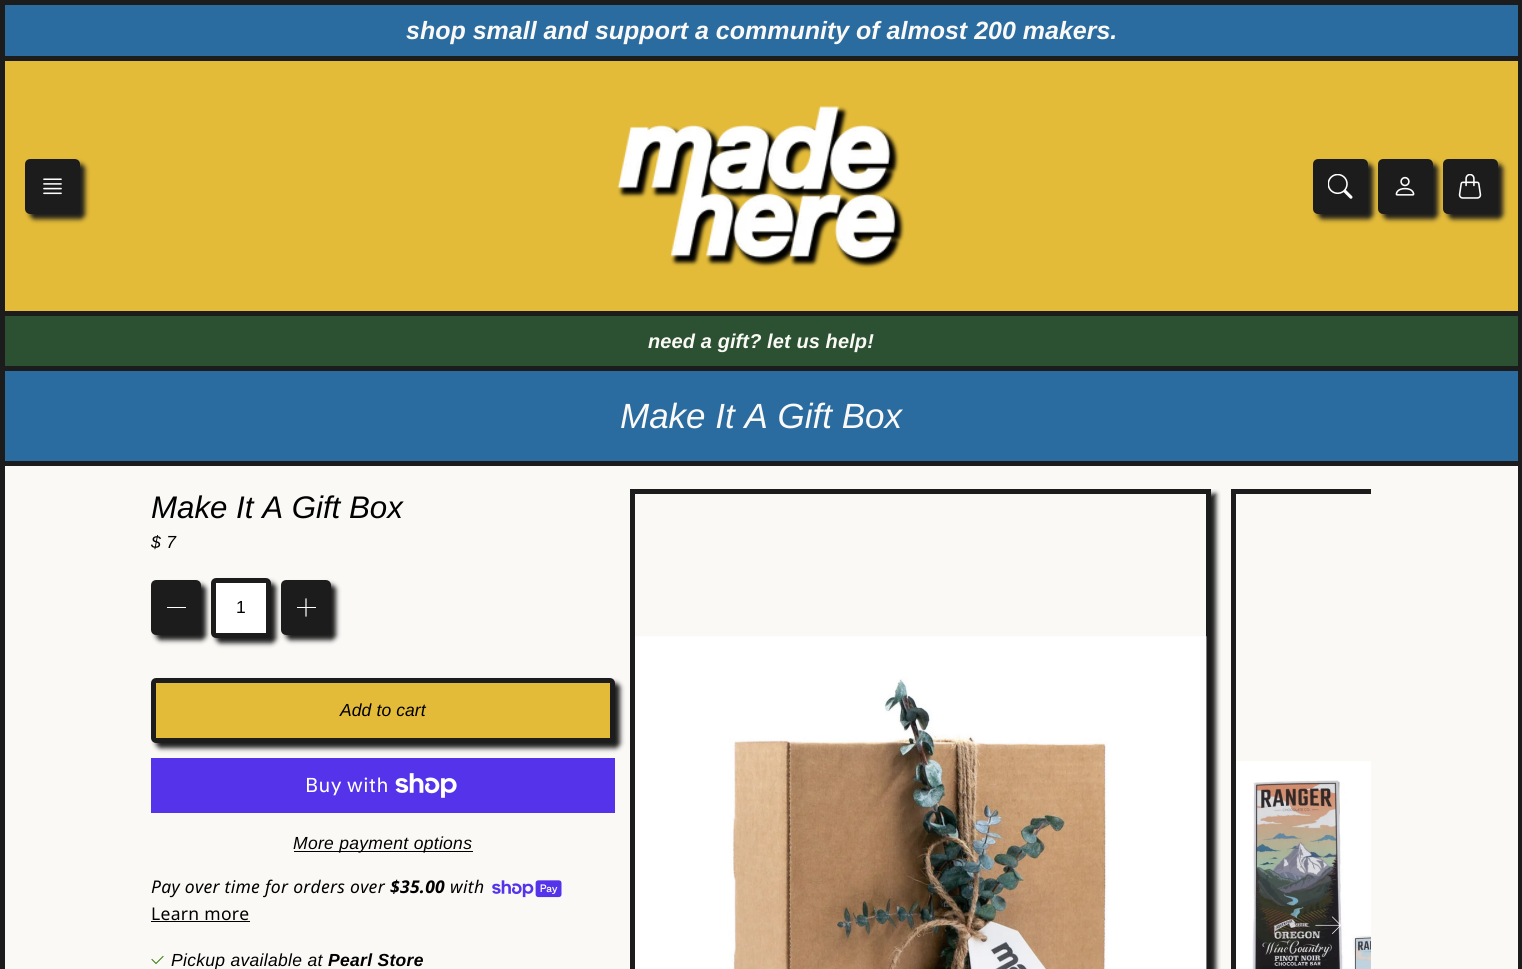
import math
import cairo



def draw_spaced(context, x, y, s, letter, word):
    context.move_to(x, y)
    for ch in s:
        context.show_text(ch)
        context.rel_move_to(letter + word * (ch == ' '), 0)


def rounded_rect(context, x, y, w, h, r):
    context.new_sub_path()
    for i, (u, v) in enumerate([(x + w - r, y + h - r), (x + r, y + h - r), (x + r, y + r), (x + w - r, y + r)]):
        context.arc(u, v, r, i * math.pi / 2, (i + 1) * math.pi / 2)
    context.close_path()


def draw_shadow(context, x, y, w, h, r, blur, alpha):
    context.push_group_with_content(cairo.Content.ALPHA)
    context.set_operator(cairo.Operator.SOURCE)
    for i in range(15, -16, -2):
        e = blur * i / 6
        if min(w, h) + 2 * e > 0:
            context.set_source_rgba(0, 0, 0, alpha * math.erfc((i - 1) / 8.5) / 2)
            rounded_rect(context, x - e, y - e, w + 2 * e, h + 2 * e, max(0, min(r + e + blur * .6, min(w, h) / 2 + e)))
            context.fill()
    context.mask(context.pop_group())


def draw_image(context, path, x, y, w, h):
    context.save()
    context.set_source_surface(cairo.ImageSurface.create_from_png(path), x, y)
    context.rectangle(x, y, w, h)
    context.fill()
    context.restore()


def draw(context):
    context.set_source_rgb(250 / 255, 249 / 255, 246 / 255)
    context.paint()
    context.rectangle(2.5, 2.5, 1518, 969)
    context.set_source_rgb(28 / 255, 28 / 255, 28 / 255)
    context.set_line_width(5)
    context.stroke()
    context.set_source_rgb(42 / 255, 107 / 255, 160 / 255)
    context.rectangle(5, 5, 1513, 51)
    context.fill()
    context.set_source_rgb(28 / 255, 28 / 255, 28 / 255)
    context.rectangle(5, 56, 1513, 5)
    context.fill()
    context.set_source_rgb(227 / 255, 187 / 255, 57 / 255)
    context.rectangle(5, 61, 1513, 250)
    context.fill()
    context.set_source_rgb(28 / 255, 28 / 255, 28 / 255)
    context.rectangle(5, 311, 1513, 5)
    context.fill()
    context.set_source_rgb(28 / 255, 28 / 255, 28 / 255)
    draw_shadow(context, 30, 164, 55, 55, 5, 2.5, 1)
    context.set_source_rgb(28 / 255, 28 / 255, 28 / 255)
    rounded_rect(context, 27.5, 161.5, 50, 50, 2.5)
    context.fill_preserve()
    context.stroke()
    draw_image(context, "images/1.png", 43, 178, 19, 17)
    draw_image(context, "images/2.png", 617, 106, 288, 162)
    context.set_source_rgb(28 / 255, 28 / 255, 28 / 255)
    draw_shadow(context, 1318, 164, 55, 55, 5, 2.5, 1)
    context.set_source_rgb(28 / 255, 28 / 255, 28 / 255)
    rounded_rect(context, 1315.5, 161.5, 50, 50, 2.5)
    context.fill_preserve()
    context.stroke()
    draw_image(context, "images/3.png", 1328, 174, 25, 25)
    context.set_source_rgb(28 / 255, 28 / 255, 28 / 255)
    draw_shadow(context, 1383, 164, 55, 55, 5, 2.5, 1)
    context.set_source_rgb(28 / 255, 28 / 255, 28 / 255)
    rounded_rect(context, 1380.5, 161.5, 50, 50, 2.5)
    context.fill_preserve()
    context.stroke()
    draw_image(context, "images/4.png", 1395, 176, 20, 20)
    context.set_source_rgb(28 / 255, 28 / 255, 28 / 255)
    draw_shadow(context, 1448, 164, 55, 55, 5, 2.5, 1)
    context.set_source_rgb(28 / 255, 28 / 255, 28 / 255)
    rounded_rect(context, 1445.5, 161.5, 50, 50, 2.5)
    context.fill_preserve()
    context.stroke()
    draw_image(context, "images/5.png", 1458, 174, 24, 25)
    context.set_source_rgb(43 / 255, 81 / 255, 50 / 255)
    context.rectangle(5, 316, 1513, 50)
    context.fill()
    context.set_source_rgb(28 / 255, 28 / 255, 28 / 255)
    context.rectangle(5, 366, 1513, 5)
    context.fill()
    context.set_source_rgb(42 / 255, 107 / 255, 160 / 255)
    context.rectangle(5, 371, 1513, 90)
    context.fill()
    context.set_source_rgb(28 / 255, 28 / 255, 28 / 255)
    context.rectangle(5, 461, 1513, 5)
    context.fill()
    context.set_source_rgb(28 / 255, 28 / 255, 28 / 255)
    draw_shadow(context, 216, 583, 60, 60, 5, 2.5, 1)
    context.set_source_rgb(1, 1, 1)
    rounded_rect(context, 213.5, 580.5, 55, 55, 2.5)
    context.fill_preserve()
    context.set_source_rgb(28 / 255, 28 / 255, 28 / 255)
    context.stroke()
    context.set_source_rgb(28 / 255, 28 / 255, 28 / 255)
    draw_shadow(context, 156, 585, 50, 55, 5, 2.5, 1)
    context.set_source_rgb(28 / 255, 28 / 255, 28 / 255)
    rounded_rect(context, 153.5, 582.5, 45, 50, 2.5)
    context.fill_preserve()
    context.stroke()
    context.set_source_rgb(1, 1, 1)
    context.rectangle(167, 607, 19, 1)
    context.fill()
    context.set_source_rgb(28 / 255, 28 / 255, 28 / 255)
    draw_shadow(context, 286, 585, 50, 55, 5, 2.5, 1)
    context.set_source_rgb(28 / 255, 28 / 255, 28 / 255)
    rounded_rect(context, 283.5, 582.5, 45, 50, 2.5)
    context.fill_preserve()
    context.stroke()
    context.new_path()
    context.move_to(306, 599)
    context.line_to(306, 616)
    context.set_source_rgb(1, 1, 1)
    context.set_line_width(1.2)
    context.set_line_cap(cairo.LineCap.SQUARE)
    context.stroke()
    context.rectangle(297, 607, 19, 1)
    context.fill()
    context.set_source_rgb(28 / 255, 28 / 255, 28 / 255)
    draw_shadow(context, 156, 683, 464, 65, 5, 2.5, 1)
    context.set_source_rgb(227 / 255, 187 / 255, 57 / 255)
    rounded_rect(context, 153.5, 680.5, 459, 60, 2.5)
    context.fill_preserve()
    context.set_source_rgb(28 / 255, 28 / 255, 28 / 255)
    context.set_line_width(5)
    context.set_line_cap(cairo.LineCap.BUTT)
    context.stroke()
    context.set_source_rgb(84 / 255, 51 / 255, 235 / 255)
    context.rectangle(151, 758, 464, 55)
    context.fill()
    draw_image(context, "images/6.png", 395, 773, 62, 25)
    context.set_source_rgb(0, 0, 0)
    context.rectangle(294, 851, 179, 1)
    context.fill()
    draw_image(context, "images/7.png", 492, 880, 70, 18)
    context.rectangle(151, 921, 99, 1)
    context.fill()
    context.new_path()
    context.move_to(152, 959.5)
    context.line_to(156, 963.5)
    context.line_to(163, 956.5)
    context.set_source_rgb(48 / 255, 122 / 255, 7 / 255)
    context.set_line_width(1)
    context.set_line_cap(cairo.LineCap.SQUARE)
    context.stroke()
    context.save()
    context.rectangle(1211, 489, 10, 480)
    context.clip()
    context.set_source_rgb(28 / 255, 28 / 255, 28 / 255)
    draw_shadow(context, 635, 494, 581, 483, 0, 2.5, 1)
    context.restore()
    context.rectangle(632.5, 491.5, 576, 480)
    context.set_source_rgb(28 / 255, 28 / 255, 28 / 255)
    context.set_line_width(5)
    context.set_line_cap(cairo.LineCap.BUTT)
    context.stroke()
    draw_image(context, "images/8.png", 635, 636, 572, 333)
    context.save()
    context.rectangle(630, 479, 741, 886)
    context.clip()
    context.rectangle(1233.5, 491.5, 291, 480)
    context.stroke()
    context.restore()
    draw_image(context, "images/9.png", 1236, 761, 135, 208)
    draw_image(context, "images/10.png", 1315, 916, 26, 18)
    context.select_font_face("Liberation Sans", cairo.FontSlant.ITALIC, cairo.FontWeight.BOLD)
    context.set_font_size(25)
    context.set_source_rgb(250 / 255, 249 / 255, 246 / 255)
    context.move_to(406, 39)
    context.show_text("shop small and support a community of almost 200 makers.")
    context.set_font_size(20)
    draw_spaced(context, 648, 348, "need a gift? let us help!", 0.1, 0)
    context.select_font_face("Liberation Sans", cairo.FontSlant.ITALIC)
    context.set_font_size(35)
    context.move_to(620, 428)
    context.show_text("Make It A Gift Box")
    context.set_font_size(31.25)
    context.set_source_rgb(0, 0, 0)
    context.move_to(151, 518)
    context.show_text("Make It A Gift Box")
    context.set_font_size(17.5)
    draw_spaced(context, 151, 548, "$ 7", 0.3, 0)
    context.select_font_face("Liberation Sans")
    context.move_to(236, 613)
    context.show_text("1")
    context.select_font_face("Liberation Sans", cairo.FontSlant.ITALIC)
    draw_spaced(context, 340, 716, "Add to cart", 0.1, 0)
    context.select_font_face("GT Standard")
    context.set_font_size(20)
    context.set_source_rgb(1, 1, 1)
    draw_spaced(context, 305, 792, "Buy with", 0.3, 0)
    context.select_font_face("Liberation Sans", cairo.FontSlant.ITALIC)
    context.set_font_size(17.5)
    context.set_source_rgb(0, 0, 0)
    draw_spaced(context, 293, 849, "More payment options", 0.3, 0)
    context.select_font_face("Noto Sans", cairo.FontSlant.ITALIC)
    draw_spaced(context, 151, 893, "Pay over time for orders over", 0.3, 0)
    context.select_font_face("Noto Sans", cairo.FontSlant.ITALIC, cairo.FontWeight.BOLD)
    draw_spaced(context, 390, 893, "$35.00", 0.3, 0)
    context.select_font_face("Noto Sans", cairo.FontSlant.ITALIC)
    draw_spaced(context, 450, 893, "with", 0.3, 0)
    context.select_font_face("Noto Sans")
    draw_spaced(context, 151, 920, "Learn more", 0.3, 0)
    context.select_font_face("Liberation Sans", cairo.FontSlant.ITALIC)
    draw_spaced(context, 171, 966, "Pickup available at", 0.3, 0)
    context.select_font_face("Liberation Sans", cairo.FontSlant.ITALIC, cairo.FontWeight.BOLD)
    draw_spaced(context, 328, 966, "Pearl Store", 0.3, 0)


surface = cairo.ImageSurface(cairo.Format.RGB24, 1522, 969)
context = cairo.Context(surface)
options = cairo.FontOptions()
options.set_hint_metrics(cairo.HintMetrics.OFF)
options.set_hint_style(cairo.HintStyle.NONE)
context.set_font_options(options)
context.set_miter_limit(4)
draw(context)
surface.write_to_png("out.png")
